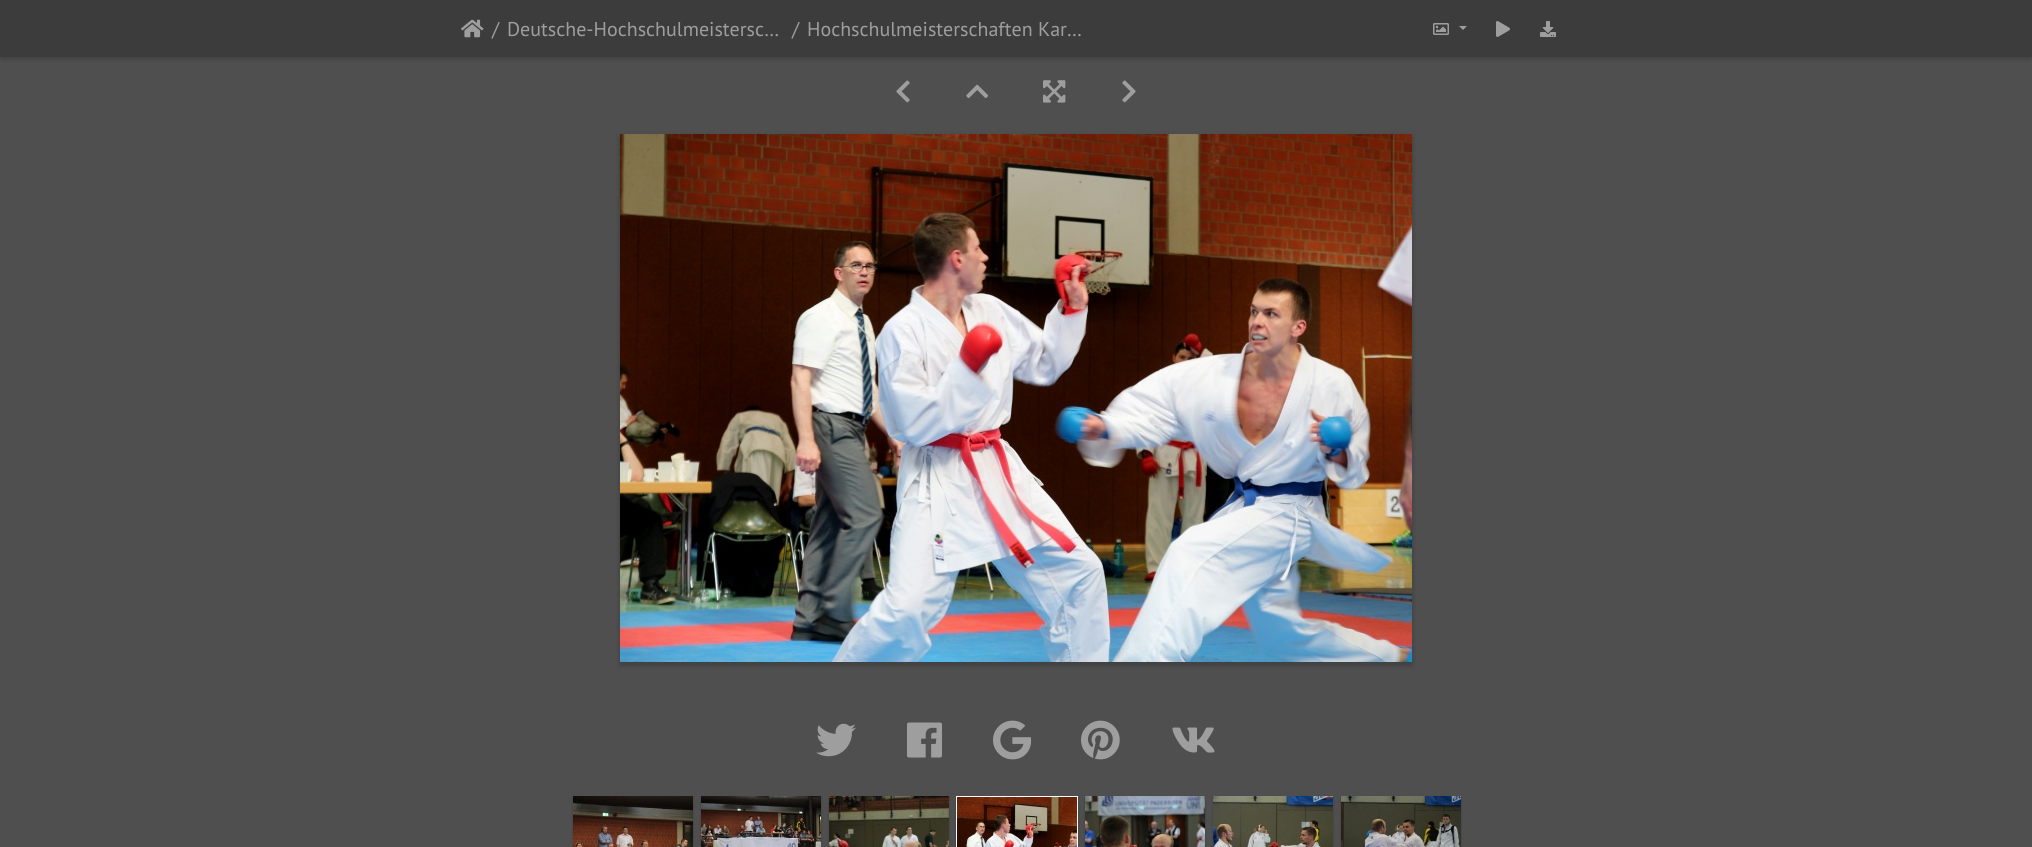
import math
import cairo



def rounded_rect(context, x, y, w, h, r):
    context.new_sub_path()
    for i, (u, v) in enumerate([(x + w - r, y + h - r), (x + r, y + h - r), (x + r, y + r), (x + w - r, y + r)]):
        context.arc(u, v, r, i * math.pi / 2, (i + 1) * math.pi / 2)
    context.close_path()


def draw_shadow(context, x, y, w, h, r, blur, alpha):
    context.push_group_with_content(cairo.Content.ALPHA)
    context.set_operator(cairo.Operator.SOURCE)
    for i in range(15, -16, -2):
        e = blur * i / 6
        if min(w, h) + 2 * e > 0:
            context.set_source_rgba(0, 0, 0, alpha * math.erfc((i - 1) / 8.5) / 2)
            rounded_rect(context, x - e, y - e, w + 2 * e, h + 2 * e, max(0, min(r + e + blur * .6, min(w, h) / 2 + e)))
            context.fill()
    context.mask(context.pop_group())


def draw_image(context, path, x, y, w, h):
    context.save()
    context.set_source_surface(cairo.ImageSurface.create_from_png(path), x, y)
    context.rectangle(x, y, w, h)
    context.fill()
    context.restore()


def draw(context):
    context.set_source_rgb(79 / 255, 79 / 255, 79 / 255)
    context.paint()
    context.set_source_rgb(0, 0, 0)
    draw_shadow(context, 1, 4, 2030, 55, 0, 2.5, 0.2)
    context.set_source_rgb(60 / 255, 60 / 255, 60 / 255)
    context.rectangle(0, 0, 2032, 57)
    context.fill()
    draw_image(context, "images/1.png", 461, 19, 23, 19)
    draw_image(context, "images/2.png", 1433, 23, 16, 12)
    context.set_source_rgb(158 / 255, 158 / 255, 158 / 255)
    context.new_path()
    context.move_to(1459, 26)
    context.line_to(1467, 26)
    context.line_to(1463, 30)
    context.close_path()
    context.fill()
    draw_image(context, "images/3.png", 1496, 21, 14, 16)
    draw_image(context, "images/4.png", 1540, 21, 16, 16)
    draw_image(context, "images/5.png", 896, 80, 14, 23)
    draw_image(context, "images/6.png", 966, 84, 22, 14)
    draw_image(context, "images/7.png", 1043, 80, 23, 23)
    draw_image(context, "images/8.png", 1122, 80, 14, 23)
    context.set_source_rgb(0, 0, 0)
    draw_shadow(context, 620, 137, 792, 528, 0, 3, 0.23)
    draw_image(context, "images/9.png", 620, 134, 792, 528)
    draw_image(context, "images/10.png", 816, 723, 40, 34)
    draw_image(context, "images/11.png", 907, 722, 35, 36)
    draw_image(context, "images/12.png", 993, 720, 39, 40)
    draw_image(context, "images/13.png", 1081, 720, 39, 40)
    draw_image(context, "images/14.png", 1172, 727, 43, 26)
    draw_shadow(context, 573, 797, 120, 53, 0, 1, 0.24)
    draw_image(context, "images/15.png", 573, 796, 120, 51)
    draw_shadow(context, 701, 797, 120, 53, 0, 1, 0.24)
    draw_image(context, "images/16.png", 701, 796, 120, 51)
    draw_shadow(context, 829, 797, 120, 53, 0, 1, 0.24)
    draw_image(context, "images/17.png", 829, 796, 120, 51)
    draw_shadow(context, 956, 797, 122, 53, 0, 1, 0.24)
    context.rectangle(956.5, 796.5, 121, 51)
    context.set_source_rgb(1, 1, 1)
    context.set_line_width(1)
    context.stroke()
    draw_image(context, "images/18.png", 957, 797, 120, 50)
    context.set_source_rgb(0, 0, 0)
    draw_shadow(context, 1085, 797, 120, 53, 0, 1, 0.24)
    draw_image(context, "images/19.png", 1085, 796, 120, 51)
    draw_shadow(context, 1213, 797, 120, 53, 0, 1, 0.24)
    draw_image(context, "images/20.png", 1213, 796, 120, 51)
    draw_shadow(context, 1341, 797, 120, 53, 0, 1, 0.24)
    draw_image(context, "images/21.png", 1341, 796, 120, 51)
    context.select_font_face("PT Sans")
    context.set_font_size(20)
    context.set_source_rgb(158 / 255, 158 / 255, 158 / 255)
    context.move_to(492, 36)
    context.show_text("/")
    context.move_to(507, 36)
    context.show_text("Deutsche-Hochschulmeistersc…")
    context.move_to(792, 36)
    context.show_text("/")
    context.move_to(807, 36)
    context.show_text("Hochschulmeisterschaften Kar…")


surface = cairo.ImageSurface(cairo.Format.RGB24, 2032, 847)
context = cairo.Context(surface)
options = cairo.FontOptions()
options.set_hint_metrics(cairo.HintMetrics.OFF)
options.set_hint_style(cairo.HintStyle.NONE)
context.set_font_options(options)
context.set_miter_limit(4)
draw(context)
surface.write_to_png("out.png")
